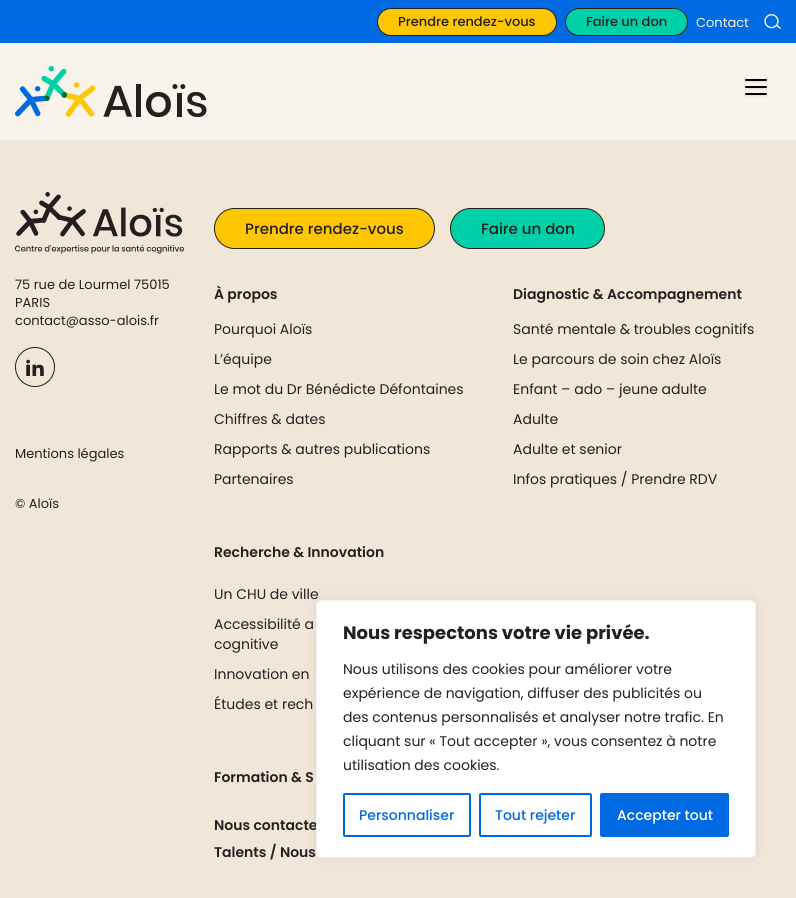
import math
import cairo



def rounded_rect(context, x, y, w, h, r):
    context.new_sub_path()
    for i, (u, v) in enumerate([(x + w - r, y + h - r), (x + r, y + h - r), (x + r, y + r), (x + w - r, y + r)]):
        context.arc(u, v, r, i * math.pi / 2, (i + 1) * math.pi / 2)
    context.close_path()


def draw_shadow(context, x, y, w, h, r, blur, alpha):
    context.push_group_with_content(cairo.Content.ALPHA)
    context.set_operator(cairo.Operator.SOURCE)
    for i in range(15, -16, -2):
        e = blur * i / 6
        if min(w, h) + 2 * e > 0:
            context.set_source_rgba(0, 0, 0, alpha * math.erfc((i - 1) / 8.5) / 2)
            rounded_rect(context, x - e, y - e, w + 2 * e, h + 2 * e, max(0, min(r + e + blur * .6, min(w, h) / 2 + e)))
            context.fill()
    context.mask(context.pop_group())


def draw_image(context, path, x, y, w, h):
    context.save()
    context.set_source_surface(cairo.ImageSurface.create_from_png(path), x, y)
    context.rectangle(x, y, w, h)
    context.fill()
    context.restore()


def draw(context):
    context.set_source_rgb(241 / 255, 231 / 255, 216 / 255)
    context.paint()
    context.set_source_rgb(248 / 255, 243 / 255, 235 / 255)
    context.rectangle(0, 43, 796, 97)
    context.fill()
    context.set_source_rgb(0, 106 / 255, 227 / 255)
    context.rectangle(0, 0, 796, 43)
    context.fill()
    context.set_source_rgb(1, 198 / 255, 3 / 255)
    rounded_rect(context, 377.5, 8.5, 179, 27, 13.5)
    context.fill_preserve()
    context.set_source_rgb(36 / 255, 31 / 255, 32 / 255)
    context.set_line_width(1)
    context.stroke()
    context.set_source_rgb(0, 208 / 255, 167 / 255)
    rounded_rect(context, 565.5, 8.5, 122, 27, 13.5)
    context.fill_preserve()
    context.set_source_rgb(36 / 255, 31 / 255, 32 / 255)
    context.stroke()
    draw_image(context, "images/1.png", 764, 14, 17, 15)
    draw_image(context, "images/2.png", 15, 66, 192, 52)
    context.set_source_rgb(0, 0, 0)
    draw_shadow(context, 745, 80, 22, 2, 1, 1, 0.1)
    context.set_source_rgb(0, 0, 0)
    rounded_rect(context, 745, 79, 22, 2, 1)
    context.fill()
    context.set_source_rgb(0, 0, 0)
    draw_shadow(context, 745, 87, 22, 2, 1, 1, 0.1)
    context.set_source_rgb(0, 0, 0)
    rounded_rect(context, 745, 86, 22, 2, 1)
    context.fill()
    context.set_source_rgb(0, 0, 0)
    draw_shadow(context, 745, 94, 22, 2, 1, 1, 0.1)
    context.set_source_rgb(0, 0, 0)
    rounded_rect(context, 745, 93, 22, 2, 1)
    context.fill()
    draw_image(context, "images/3.png", 15, 192, 169, 62)
    context.arc(35, 367, 19.5, 0, 2 * math.pi)
    context.set_source_rgb(36 / 255, 31 / 255, 32 / 255)
    context.stroke()
    draw_image(context, "images/4.png", 26, 359, 18, 17)
    context.set_source_rgb(1, 198 / 255, 3 / 255)
    rounded_rect(context, 214.5, 208.5, 220, 40, 20)
    context.fill_preserve()
    context.set_source_rgb(36 / 255, 31 / 255, 32 / 255)
    context.stroke()
    context.set_source_rgb(0, 208 / 255, 167 / 255)
    rounded_rect(context, 450.5, 208.5, 154, 40, 20)
    context.fill_preserve()
    context.set_source_rgb(36 / 255, 31 / 255, 32 / 255)
    context.stroke()
    context.set_source_rgb(172 / 255, 171 / 255, 171 / 255)
    draw_shadow(context, 316, 599, 440, 258, 6, 5, 0.3)
    context.select_font_face("Poppins Medium")
    context.set_font_size(13)
    context.set_source_rgb(36 / 255, 31 / 255, 32 / 255)
    context.move_to(398, 26)
    context.show_text("Prendre rendez-vous")
    context.move_to(586, 26)
    context.show_text("Faire un don")
    context.select_font_face("Poppins")
    context.set_source_rgb(248 / 255, 243 / 255, 235 / 255)
    context.move_to(696, 27)
    context.show_text("Contact")
    context.set_source_rgb(36 / 255, 31 / 255, 32 / 255)
    context.move_to(15, 289)
    context.show_text("75 rue de Lourmel 75015")
    context.move_to(15, 307)
    context.show_text("PARIS")
    context.move_to(15, 325)
    context.show_text("contact@asso-alois.fr")
    context.move_to(15, 458)
    context.show_text("Mentions légales")
    context.move_to(15, 508)
    context.show_text("© Aloïs")
    context.select_font_face("Poppins Medium")
    context.set_font_size(15)
    context.move_to(245, 234)
    context.show_text("Prendre rendez-vous")
    context.move_to(481, 234)
    context.show_text("Faire un don")
    context.select_font_face("Poppins SemiBold")
    context.set_font_size(14)
    context.move_to(214, 299)
    context.show_text("À propos")
    context.select_font_face("Poppins")
    context.move_to(214, 334)
    context.show_text("Pourquoi Aloïs")
    context.move_to(214, 364)
    context.show_text("L’équipe")
    context.move_to(214, 394)
    context.show_text("Le mot du Dr Bénédicte Défontaines")
    context.move_to(214, 424)
    context.show_text("Chiffres & dates")
    context.move_to(214, 454)
    context.show_text("Rapports & autres publications")
    context.move_to(214, 484)
    context.show_text("Partenaires")
    context.select_font_face("Poppins SemiBold")
    context.move_to(513, 299)
    context.show_text("Diagnostic & Accompagnement")
    context.select_font_face("Poppins")
    context.move_to(513, 334)
    context.show_text("Santé mentale & troubles cognitifs")
    context.move_to(513, 364)
    context.show_text("Le parcours de soin chez Aloïs")
    context.move_to(513, 394)
    context.show_text("Enfant – ado – jeune adulte")
    context.move_to(513, 424)
    context.show_text("Adulte")
    context.move_to(513, 454)
    context.show_text("Adulte et senior")
    context.move_to(513, 484)
    context.show_text("Infos pratiques / Prendre RDV")
    context.select_font_face("Poppins SemiBold")
    context.move_to(214, 557)
    context.show_text("Recherche & Innovation")
    context.select_font_face("Poppins")
    context.move_to(214, 599)
    context.show_text("Un CHU de ville")
    context.move_to(214, 629)
    context.show_text("Accessibilité a")
    context.move_to(214, 649)
    context.show_text("cognitive")
    context.move_to(214, 679)
    context.show_text("Innovation en")
    context.move_to(214, 709)
    context.show_text("Études et rech")
    context.select_font_face("Poppins SemiBold")
    context.move_to(214, 782)
    context.show_text("Formation & S")
    context.move_to(214, 830)
    context.show_text("Nous contacte")
    context.move_to(214, 857)
    context.show_text("Talents / Nous")
    context.set_source_rgb(1, 1, 1)
    rounded_rect(context, 316.5, 600.5, 439, 257, 5.5)
    context.fill_preserve()
    context.set_source_rgb(244 / 255, 244 / 255, 244 / 255)
    context.stroke()
    context.select_font_face("Poppins", cairo.FontSlant.NORMAL, cairo.FontWeight.BOLD)
    context.set_font_size(18)
    context.set_source_rgb(36 / 255, 31 / 255, 32 / 255)
    context.move_to(343, 639)
    context.show_text("Nous respectons votre vie privée.")
    context.select_font_face("Poppins")
    context.set_font_size(14)
    context.move_to(343, 674)
    context.show_text("Nous utilisons des cookies pour améliorer votre")
    context.move_to(343, 698)
    context.show_text("expérience de navigation, diffuser des publicités ou")
    context.move_to(343, 722)
    context.show_text("des contenus personnalisés et analyser notre trafic. En")
    context.move_to(343, 746)
    context.show_text("cliquant sur « Tout accepter », vous consentez à notre")
    context.move_to(343, 770)
    context.show_text("utilisation des cookies.")
    rounded_rect(context, 344, 794, 126, 42, 1)
    context.set_source_rgb(0, 106 / 255, 227 / 255)
    context.set_line_width(2)
    context.stroke()
    context.select_font_face("Poppins Medium")
    context.move_to(359, 820)
    context.show_text("Personnaliser")
    rounded_rect(context, 480, 794, 111, 42, 1)
    context.stroke()
    context.move_to(495, 820)
    context.show_text("Tout rejeter")
    rounded_rect(context, 601, 794, 127, 42, 1)
    context.fill_preserve()
    context.stroke()
    context.set_source_rgb(1, 1, 1)
    context.move_to(617, 820)
    context.show_text("Accepter tout")


surface = cairo.ImageSurface(cairo.Format.RGB24, 796, 898)
context = cairo.Context(surface)
options = cairo.FontOptions()
options.set_hint_metrics(cairo.HintMetrics.OFF)
options.set_hint_style(cairo.HintStyle.NONE)
context.set_font_options(options)
context.set_miter_limit(4)
draw(context)
surface.write_to_png("out.png")
